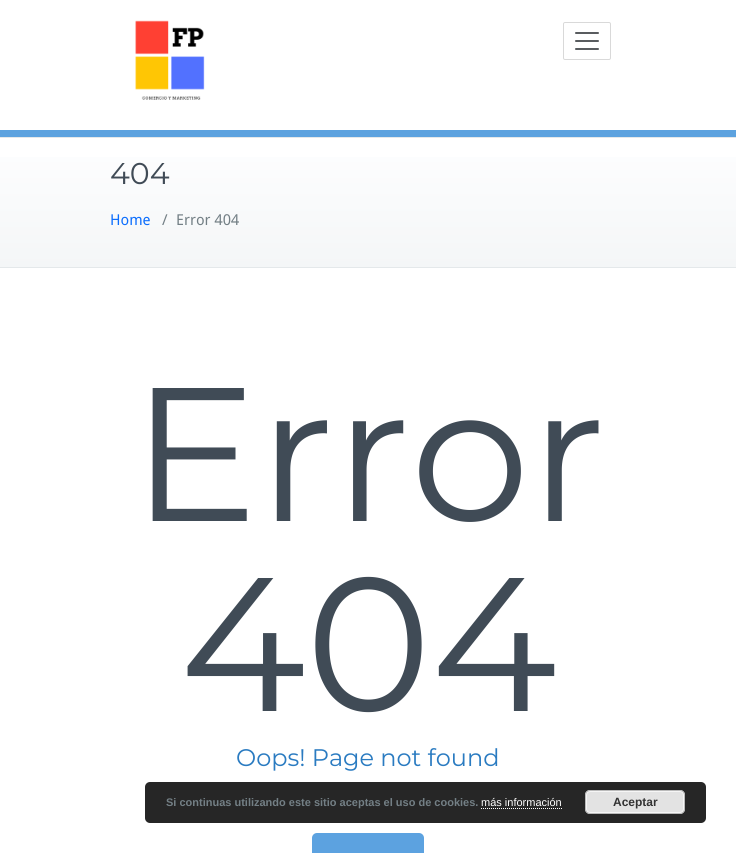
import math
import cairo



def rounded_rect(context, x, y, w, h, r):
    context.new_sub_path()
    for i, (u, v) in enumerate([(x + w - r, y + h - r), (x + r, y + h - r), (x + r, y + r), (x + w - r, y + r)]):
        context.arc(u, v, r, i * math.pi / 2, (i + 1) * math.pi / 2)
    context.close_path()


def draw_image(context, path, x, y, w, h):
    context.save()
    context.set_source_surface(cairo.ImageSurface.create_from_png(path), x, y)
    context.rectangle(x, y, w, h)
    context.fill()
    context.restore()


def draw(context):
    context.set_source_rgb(1, 1, 1)
    context.paint()
    context.set_source_rgb(92 / 255, 162 / 255, 223 / 255)
    context.rectangle(0, 130, 736, 7)
    context.fill()
    draw_image(context, "images/1.png", 135, 20, 70, 80)
    rounded_rect(context, 563.5, 22.5, 47, 37, 1.5)
    context.set_source_rgb(217 / 255, 217 / 255, 217 / 255)
    context.set_line_width(1)
    context.stroke()
    draw_image(context, "images/2.png", 575, 32, 24, 18)
    gradient = cairo.LinearGradient(368, 138, 368, 267)
    gradient.add_color_stop_rgba(0, 254 / 255, 254 / 255, 1, 1)
    gradient.add_color_stop_rgba(1, 244 / 255, 246 / 255, 247 / 255, 1)
    context.set_source(gradient)
    context.rectangle(0, 157, 736, 110)
    context.fill()
    context.set_source_rgb(228 / 255, 232 / 255, 234 / 255)
    context.rectangle(0, 137, 736, 1)
    context.fill()
    context.rectangle(0, 267, 736, 1)
    context.fill()
    context.set_source_rgb(92 / 255, 162 / 255, 224 / 255)
    rounded_rect(context, 312, 833, 112, 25, 5)
    context.fill()
    context.set_source_rgba(0, 0, 0, 0.85)
    rounded_rect(context, 145, 782, 561, 41, 5)
    context.fill()
    context.new_path()
    context.move_to(481, 808.5)
    context.line_to(562, 808.5)
    context.set_source_rgb(1, 1, 1)
    context.set_dash([1, 1])
    context.stroke()
    context.set_source_rgb(227 / 255, 227 / 255, 227 / 255)
    rounded_rect(context, 585, 790, 100, 24, 5)
    context.fill()
    rounded_rect(context, 586.5, 791.5, 97, 21, 3.5)
    context.set_source_rgb(246 / 255, 246 / 255, 246 / 255)
    context.set_dash([])
    context.stroke()
    rounded_rect(context, 585.5, 790.5, 99, 23, 4.5)
    context.set_source_rgb(187 / 255, 187 / 255, 187 / 255)
    context.stroke()
    context.select_font_face("Montserrat")
    context.set_font_size(30)
    context.set_source_rgb(64 / 255, 75 / 255, 86 / 255)
    context.move_to(110, 184)
    context.show_text("404")
    context.select_font_face("Droid Sans")
    context.set_font_size(15)
    context.set_source_rgb(13 / 255, 110 / 255, 253 / 255)
    context.move_to(110, 225)
    context.show_text("Home")
    context.set_source_rgb(115 / 255, 127 / 255, 133 / 255)
    context.move_to(162, 225)
    context.show_text("/")
    context.move_to(176, 225)
    context.show_text("Error 404")
    context.select_font_face("Montserrat")
    context.set_font_size(190)
    context.set_source_rgb(64 / 255, 75 / 255, 86 / 255)
    context.move_to(131, 521)
    context.show_text("Error")
    context.move_to(180, 711)
    context.show_text("404")
    context.set_font_size(24)
    context.set_source_rgb(42 / 255, 123 / 255, 193 / 255)
    context.move_to(236, 766)
    context.show_text("Oops! Page not found")
    context.select_font_face("Liberation Sans", cairo.FontSlant.NORMAL, cairo.FontWeight.BOLD)
    context.set_font_size(11)
    context.set_source_rgb(115 / 255, 127 / 255, 133 / 255)
    context.move_to(166, 806)
    context.show_text("Si continuas utilizando este sitio aceptas el uso de cookies.")
    context.select_font_face("Liberation Sans")
    context.set_source_rgb(1, 1, 1)
    context.move_to(481, 806)
    context.show_text("más información")
    context.select_font_face("Liberation Sans", cairo.FontSlant.NORMAL, cairo.FontWeight.BOLD)
    context.set_font_size(12)
    context.set_source_rgb(51 / 255, 51 / 255, 51 / 255)
    context.move_to(613, 806)
    context.show_text("Aceptar")


surface = cairo.ImageSurface(cairo.Format.RGB24, 736, 853)
context = cairo.Context(surface)
options = cairo.FontOptions()
options.set_hint_metrics(cairo.HintMetrics.OFF)
options.set_hint_style(cairo.HintStyle.NONE)
context.set_font_options(options)
context.set_miter_limit(4)
draw(context)
surface.write_to_png("out.png")
